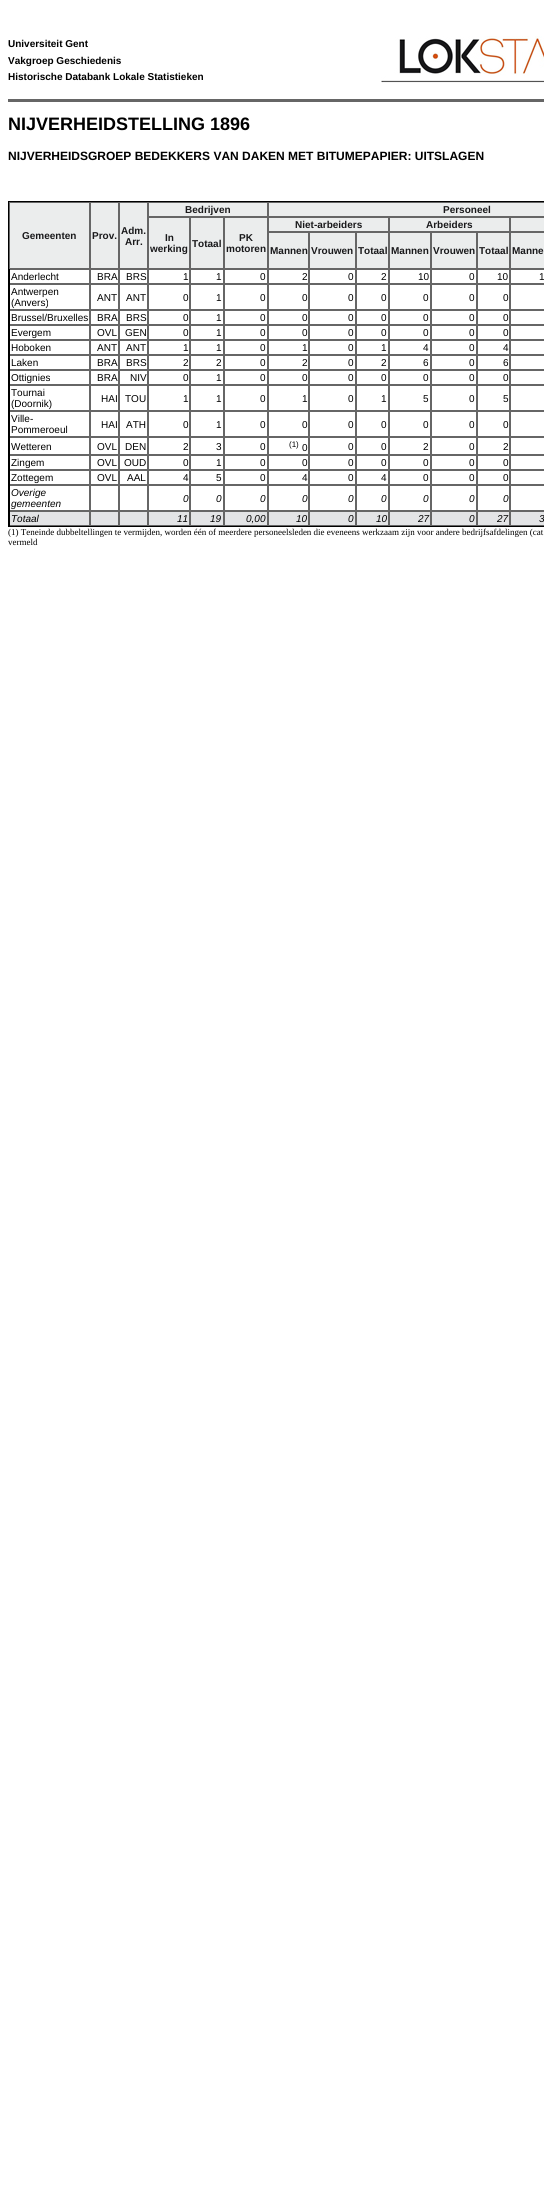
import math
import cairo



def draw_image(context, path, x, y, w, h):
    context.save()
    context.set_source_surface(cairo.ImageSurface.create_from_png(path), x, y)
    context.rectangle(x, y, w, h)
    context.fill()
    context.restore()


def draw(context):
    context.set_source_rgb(1, 1, 1)
    context.paint()
    context.set_source_rgb(102 / 255, 102 / 255, 102 / 255)
    context.rectangle(8, 99, 536, 3)
    context.fill()
    draw_image(context, "images/1.png", 381, 36, 163, 47)
    context.rectangle(8.5, 201.5, 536, 325)
    context.set_source_rgb(0, 0, 0)
    context.set_line_width(1)
    context.stroke()
    context.set_source_rgb(235 / 255, 237 / 255, 237 / 255)
    context.rectangle(148.5, 202.5, 119, 14)
    context.fill_preserve()
    context.set_source_rgb(102 / 255, 102 / 255, 102 / 255)
    context.stroke()
    context.set_source_rgb(235 / 255, 237 / 255, 237 / 255)
    context.rectangle(268.5, 202.5, 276, 14)
    context.fill_preserve()
    context.set_source_rgb(102 / 255, 102 / 255, 102 / 255)
    context.stroke()
    context.set_source_rgb(235 / 255, 237 / 255, 237 / 255)
    context.rectangle(9.5, 202.5, 80, 66)
    context.fill_preserve()
    context.set_source_rgb(102 / 255, 102 / 255, 102 / 255)
    context.stroke()
    context.set_source_rgb(235 / 255, 237 / 255, 237 / 255)
    context.rectangle(90.5, 202.5, 28, 66)
    context.fill_preserve()
    context.set_source_rgb(102 / 255, 102 / 255, 102 / 255)
    context.stroke()
    context.set_source_rgb(235 / 255, 237 / 255, 237 / 255)
    context.rectangle(119.5, 202.5, 28, 66)
    context.fill_preserve()
    context.set_source_rgb(102 / 255, 102 / 255, 102 / 255)
    context.stroke()
    context.set_source_rgb(235 / 255, 237 / 255, 237 / 255)
    context.rectangle(268.5, 217.5, 120, 14)
    context.fill_preserve()
    context.set_source_rgb(102 / 255, 102 / 255, 102 / 255)
    context.stroke()
    context.set_source_rgb(235 / 255, 237 / 255, 237 / 255)
    context.rectangle(389.5, 217.5, 120, 14)
    context.fill_preserve()
    context.set_source_rgb(102 / 255, 102 / 255, 102 / 255)
    context.stroke()
    context.set_source_rgb(235 / 255, 237 / 255, 237 / 255)
    context.rectangle(510.5, 217.5, 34, 14)
    context.fill_preserve()
    context.set_source_rgb(102 / 255, 102 / 255, 102 / 255)
    context.stroke()
    context.set_source_rgb(235 / 255, 237 / 255, 237 / 255)
    context.rectangle(148.5, 217.5, 41, 51)
    context.fill_preserve()
    context.set_source_rgb(102 / 255, 102 / 255, 102 / 255)
    context.stroke()
    context.set_source_rgb(235 / 255, 237 / 255, 237 / 255)
    context.rectangle(190.5, 217.5, 33, 51)
    context.fill_preserve()
    context.set_source_rgb(102 / 255, 102 / 255, 102 / 255)
    context.stroke()
    context.set_source_rgb(235 / 255, 237 / 255, 237 / 255)
    context.rectangle(224.5, 217.5, 43, 51)
    context.fill_preserve()
    context.set_source_rgb(102 / 255, 102 / 255, 102 / 255)
    context.stroke()
    context.set_source_rgb(235 / 255, 237 / 255, 237 / 255)
    context.rectangle(268.5, 232.5, 40, 36)
    context.fill_preserve()
    context.set_source_rgb(102 / 255, 102 / 255, 102 / 255)
    context.stroke()
    context.set_source_rgb(235 / 255, 237 / 255, 237 / 255)
    context.rectangle(309.5, 232.5, 46, 36)
    context.fill_preserve()
    context.set_source_rgb(102 / 255, 102 / 255, 102 / 255)
    context.stroke()
    context.set_source_rgb(235 / 255, 237 / 255, 237 / 255)
    context.rectangle(356.5, 232.5, 32, 36)
    context.fill_preserve()
    context.set_source_rgb(102 / 255, 102 / 255, 102 / 255)
    context.stroke()
    context.set_source_rgb(235 / 255, 237 / 255, 237 / 255)
    context.rectangle(389.5, 232.5, 41, 36)
    context.fill_preserve()
    context.set_source_rgb(102 / 255, 102 / 255, 102 / 255)
    context.stroke()
    context.set_source_rgb(235 / 255, 237 / 255, 237 / 255)
    context.rectangle(431.5, 232.5, 45, 36)
    context.fill_preserve()
    context.set_source_rgb(102 / 255, 102 / 255, 102 / 255)
    context.stroke()
    context.set_source_rgb(235 / 255, 237 / 255, 237 / 255)
    context.rectangle(477.5, 232.5, 32, 36)
    context.fill_preserve()
    context.set_source_rgb(102 / 255, 102 / 255, 102 / 255)
    context.stroke()
    context.set_source_rgb(235 / 255, 237 / 255, 237 / 255)
    context.rectangle(510.5, 232.5, 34, 36)
    context.fill_preserve()
    context.set_source_rgb(102 / 255, 102 / 255, 102 / 255)
    context.stroke()
    context.rectangle(9, 269, 81, 1)
    context.fill()
    context.rectangle(89, 269, 1, 15)
    context.fill()
    context.rectangle(9, 283, 81, 2)
    context.fill()
    context.set_source_rgb(0, 0, 0)
    context.rectangle(9, 269, 1, 15)
    context.fill()
    context.rectangle(90.5, 269.5, 28, 14)
    context.set_source_rgb(102 / 255, 102 / 255, 102 / 255)
    context.stroke()
    context.rectangle(119.5, 269.5, 28, 14)
    context.stroke()
    context.rectangle(148.5, 269.5, 41, 14)
    context.stroke()
    context.rectangle(190.5, 269.5, 33, 14)
    context.stroke()
    context.rectangle(224.5, 269.5, 43, 14)
    context.stroke()
    context.rectangle(268.5, 269.5, 40, 14)
    context.stroke()
    context.rectangle(309.5, 269.5, 46, 14)
    context.stroke()
    context.rectangle(356.5, 269.5, 32, 14)
    context.stroke()
    context.rectangle(389.5, 269.5, 41, 14)
    context.stroke()
    context.rectangle(431.5, 269.5, 45, 14)
    context.stroke()
    context.rectangle(477.5, 269.5, 32, 14)
    context.stroke()
    context.rectangle(510.5, 269.5, 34, 14)
    context.stroke()
    context.rectangle(89, 284, 1, 26)
    context.fill()
    context.rectangle(9, 309, 81, 2)
    context.fill()
    context.set_source_rgb(0, 0, 0)
    context.rectangle(9, 284, 1, 26)
    context.fill()
    context.rectangle(90.5, 284.5, 28, 25)
    context.set_source_rgb(102 / 255, 102 / 255, 102 / 255)
    context.stroke()
    context.rectangle(119.5, 284.5, 28, 25)
    context.stroke()
    context.rectangle(148.5, 284.5, 41, 25)
    context.stroke()
    context.rectangle(190.5, 284.5, 33, 25)
    context.stroke()
    context.rectangle(224.5, 284.5, 43, 25)
    context.stroke()
    context.rectangle(268.5, 284.5, 40, 25)
    context.stroke()
    context.rectangle(309.5, 284.5, 46, 25)
    context.stroke()
    context.rectangle(356.5, 284.5, 32, 25)
    context.stroke()
    context.rectangle(389.5, 284.5, 41, 25)
    context.stroke()
    context.rectangle(431.5, 284.5, 45, 25)
    context.stroke()
    context.rectangle(477.5, 284.5, 32, 25)
    context.stroke()
    context.rectangle(510.5, 284.5, 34, 25)
    context.stroke()
    context.rectangle(89, 310, 1, 15)
    context.fill()
    context.rectangle(9, 324, 81, 2)
    context.fill()
    context.set_source_rgb(0, 0, 0)
    context.rectangle(9, 310, 1, 15)
    context.fill()
    context.rectangle(90.5, 310.5, 28, 14)
    context.set_source_rgb(102 / 255, 102 / 255, 102 / 255)
    context.stroke()
    context.rectangle(119.5, 310.5, 28, 14)
    context.stroke()
    context.rectangle(148.5, 310.5, 41, 14)
    context.stroke()
    context.rectangle(190.5, 310.5, 33, 14)
    context.stroke()
    context.rectangle(224.5, 310.5, 43, 14)
    context.stroke()
    context.rectangle(268.5, 310.5, 40, 14)
    context.stroke()
    context.rectangle(309.5, 310.5, 46, 14)
    context.stroke()
    context.rectangle(356.5, 310.5, 32, 14)
    context.stroke()
    context.rectangle(389.5, 310.5, 41, 14)
    context.stroke()
    context.rectangle(431.5, 310.5, 45, 14)
    context.stroke()
    context.rectangle(477.5, 310.5, 32, 14)
    context.stroke()
    context.rectangle(510.5, 310.5, 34, 14)
    context.stroke()
    context.rectangle(89, 325, 1, 15)
    context.fill()
    context.rectangle(9, 339, 81, 2)
    context.fill()
    context.set_source_rgb(0, 0, 0)
    context.rectangle(9, 325, 1, 15)
    context.fill()
    context.rectangle(90.5, 325.5, 28, 14)
    context.set_source_rgb(102 / 255, 102 / 255, 102 / 255)
    context.stroke()
    context.rectangle(119.5, 325.5, 28, 14)
    context.stroke()
    context.rectangle(148.5, 325.5, 41, 14)
    context.stroke()
    context.rectangle(190.5, 325.5, 33, 14)
    context.stroke()
    context.rectangle(224.5, 325.5, 43, 14)
    context.stroke()
    context.rectangle(268.5, 325.5, 40, 14)
    context.stroke()
    context.rectangle(309.5, 325.5, 46, 14)
    context.stroke()
    context.rectangle(356.5, 325.5, 32, 14)
    context.stroke()
    context.rectangle(389.5, 325.5, 41, 14)
    context.stroke()
    context.rectangle(431.5, 325.5, 45, 14)
    context.stroke()
    context.rectangle(477.5, 325.5, 32, 14)
    context.stroke()
    context.rectangle(510.5, 325.5, 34, 14)
    context.stroke()
    context.rectangle(89, 340, 1, 15)
    context.fill()
    context.rectangle(9, 354, 81, 2)
    context.fill()
    context.set_source_rgb(0, 0, 0)
    context.rectangle(9, 340, 1, 15)
    context.fill()
    context.rectangle(90.5, 340.5, 28, 14)
    context.set_source_rgb(102 / 255, 102 / 255, 102 / 255)
    context.stroke()
    context.rectangle(119.5, 340.5, 28, 14)
    context.stroke()
    context.rectangle(148.5, 340.5, 41, 14)
    context.stroke()
    context.rectangle(190.5, 340.5, 33, 14)
    context.stroke()
    context.rectangle(224.5, 340.5, 43, 14)
    context.stroke()
    context.rectangle(268.5, 340.5, 40, 14)
    context.stroke()
    context.rectangle(309.5, 340.5, 46, 14)
    context.stroke()
    context.rectangle(356.5, 340.5, 32, 14)
    context.stroke()
    context.rectangle(389.5, 340.5, 41, 14)
    context.stroke()
    context.rectangle(431.5, 340.5, 45, 14)
    context.stroke()
    context.rectangle(477.5, 340.5, 32, 14)
    context.stroke()
    context.rectangle(510.5, 340.5, 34, 14)
    context.stroke()
    context.rectangle(89, 355, 1, 15)
    context.fill()
    context.rectangle(9, 369, 81, 2)
    context.fill()
    context.set_source_rgb(0, 0, 0)
    context.rectangle(9, 355, 1, 15)
    context.fill()
    context.rectangle(90.5, 355.5, 28, 14)
    context.set_source_rgb(102 / 255, 102 / 255, 102 / 255)
    context.stroke()
    context.rectangle(119.5, 355.5, 28, 14)
    context.stroke()
    context.rectangle(148.5, 355.5, 41, 14)
    context.stroke()
    context.rectangle(190.5, 355.5, 33, 14)
    context.stroke()
    context.rectangle(224.5, 355.5, 43, 14)
    context.stroke()
    context.rectangle(268.5, 355.5, 40, 14)
    context.stroke()
    context.rectangle(309.5, 355.5, 46, 14)
    context.stroke()
    context.rectangle(356.5, 355.5, 32, 14)
    context.stroke()
    context.rectangle(389.5, 355.5, 41, 14)
    context.stroke()
    context.rectangle(431.5, 355.5, 45, 14)
    context.stroke()
    context.rectangle(477.5, 355.5, 32, 14)
    context.stroke()
    context.rectangle(510.5, 355.5, 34, 14)
    context.stroke()
    context.rectangle(89, 370, 1, 15)
    context.fill()
    context.rectangle(9, 384, 81, 2)
    context.fill()
    context.set_source_rgb(0, 0, 0)
    context.rectangle(9, 370, 1, 15)
    context.fill()
    context.rectangle(90.5, 370.5, 28, 14)
    context.set_source_rgb(102 / 255, 102 / 255, 102 / 255)
    context.stroke()
    context.rectangle(119.5, 370.5, 28, 14)
    context.stroke()
    context.rectangle(148.5, 370.5, 41, 14)
    context.stroke()
    context.rectangle(190.5, 370.5, 33, 14)
    context.stroke()
    context.rectangle(224.5, 370.5, 43, 14)
    context.stroke()
    context.rectangle(268.5, 370.5, 40, 14)
    context.stroke()
    context.rectangle(309.5, 370.5, 46, 14)
    context.stroke()
    context.rectangle(356.5, 370.5, 32, 14)
    context.stroke()
    context.rectangle(389.5, 370.5, 41, 14)
    context.stroke()
    context.rectangle(431.5, 370.5, 45, 14)
    context.stroke()
    context.rectangle(477.5, 370.5, 32, 14)
    context.stroke()
    context.rectangle(510.5, 370.5, 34, 14)
    context.stroke()
    context.rectangle(89, 385, 1, 26)
    context.fill()
    context.rectangle(9, 410, 81, 2)
    context.fill()
    context.set_source_rgb(0, 0, 0)
    context.rectangle(9, 385, 1, 26)
    context.fill()
    context.rectangle(90.5, 385.5, 28, 25)
    context.set_source_rgb(102 / 255, 102 / 255, 102 / 255)
    context.stroke()
    context.rectangle(119.5, 385.5, 28, 25)
    context.stroke()
    context.rectangle(148.5, 385.5, 41, 25)
    context.stroke()
    context.rectangle(190.5, 385.5, 33, 25)
    context.stroke()
    context.rectangle(224.5, 385.5, 43, 25)
    context.stroke()
    context.rectangle(268.5, 385.5, 40, 25)
    context.stroke()
    context.rectangle(309.5, 385.5, 46, 25)
    context.stroke()
    context.rectangle(356.5, 385.5, 32, 25)
    context.stroke()
    context.rectangle(389.5, 385.5, 41, 25)
    context.stroke()
    context.rectangle(431.5, 385.5, 45, 25)
    context.stroke()
    context.rectangle(477.5, 385.5, 32, 25)
    context.stroke()
    context.rectangle(510.5, 385.5, 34, 25)
    context.stroke()
    context.rectangle(89, 411, 1, 26)
    context.fill()
    context.rectangle(9, 436, 81, 2)
    context.fill()
    context.set_source_rgb(0, 0, 0)
    context.rectangle(9, 411, 1, 26)
    context.fill()
    context.rectangle(90.5, 411.5, 28, 25)
    context.set_source_rgb(102 / 255, 102 / 255, 102 / 255)
    context.stroke()
    context.rectangle(119.5, 411.5, 28, 25)
    context.stroke()
    context.rectangle(148.5, 411.5, 41, 25)
    context.stroke()
    context.rectangle(190.5, 411.5, 33, 25)
    context.stroke()
    context.rectangle(224.5, 411.5, 43, 25)
    context.stroke()
    context.rectangle(268.5, 411.5, 40, 25)
    context.stroke()
    context.rectangle(309.5, 411.5, 46, 25)
    context.stroke()
    context.rectangle(356.5, 411.5, 32, 25)
    context.stroke()
    context.rectangle(389.5, 411.5, 41, 25)
    context.stroke()
    context.rectangle(431.5, 411.5, 45, 25)
    context.stroke()
    context.rectangle(477.5, 411.5, 32, 25)
    context.stroke()
    context.rectangle(510.5, 411.5, 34, 25)
    context.stroke()
    context.rectangle(89, 437, 1, 18)
    context.fill()
    context.rectangle(9, 454, 81, 2)
    context.fill()
    context.set_source_rgb(0, 0, 0)
    context.rectangle(9, 437, 1, 18)
    context.fill()
    context.rectangle(90.5, 437.5, 28, 17)
    context.set_source_rgb(102 / 255, 102 / 255, 102 / 255)
    context.stroke()
    context.rectangle(119.5, 437.5, 28, 17)
    context.stroke()
    context.rectangle(148.5, 437.5, 41, 17)
    context.stroke()
    context.rectangle(190.5, 437.5, 33, 17)
    context.stroke()
    context.rectangle(224.5, 437.5, 43, 17)
    context.stroke()
    context.rectangle(268.5, 437.5, 40, 17)
    context.stroke()
    context.rectangle(309.5, 437.5, 46, 17)
    context.stroke()
    context.rectangle(356.5, 437.5, 32, 17)
    context.stroke()
    context.rectangle(389.5, 437.5, 41, 17)
    context.stroke()
    context.rectangle(431.5, 437.5, 45, 17)
    context.stroke()
    context.rectangle(477.5, 437.5, 32, 17)
    context.stroke()
    context.rectangle(510.5, 437.5, 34, 17)
    context.stroke()
    context.rectangle(89, 455, 1, 15)
    context.fill()
    context.rectangle(9, 469, 81, 2)
    context.fill()
    context.set_source_rgb(0, 0, 0)
    context.rectangle(9, 455, 1, 15)
    context.fill()
    context.rectangle(90.5, 455.5, 28, 14)
    context.set_source_rgb(102 / 255, 102 / 255, 102 / 255)
    context.stroke()
    context.rectangle(119.5, 455.5, 28, 14)
    context.stroke()
    context.rectangle(148.5, 455.5, 41, 14)
    context.stroke()
    context.rectangle(190.5, 455.5, 33, 14)
    context.stroke()
    context.rectangle(224.5, 455.5, 43, 14)
    context.stroke()
    context.rectangle(268.5, 455.5, 40, 14)
    context.stroke()
    context.rectangle(309.5, 455.5, 46, 14)
    context.stroke()
    context.rectangle(356.5, 455.5, 32, 14)
    context.stroke()
    context.rectangle(389.5, 455.5, 41, 14)
    context.stroke()
    context.rectangle(431.5, 455.5, 45, 14)
    context.stroke()
    context.rectangle(477.5, 455.5, 32, 14)
    context.stroke()
    context.rectangle(510.5, 455.5, 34, 14)
    context.stroke()
    context.rectangle(89, 470, 1, 15)
    context.fill()
    context.rectangle(9, 484, 81, 2)
    context.fill()
    context.set_source_rgb(0, 0, 0)
    context.rectangle(9, 470, 1, 15)
    context.fill()
    context.rectangle(90.5, 470.5, 28, 14)
    context.set_source_rgb(102 / 255, 102 / 255, 102 / 255)
    context.stroke()
    context.rectangle(119.5, 470.5, 28, 14)
    context.stroke()
    context.rectangle(148.5, 470.5, 41, 14)
    context.stroke()
    context.rectangle(190.5, 470.5, 33, 14)
    context.stroke()
    context.rectangle(224.5, 470.5, 43, 14)
    context.stroke()
    context.rectangle(268.5, 470.5, 40, 14)
    context.stroke()
    context.rectangle(309.5, 470.5, 46, 14)
    context.stroke()
    context.rectangle(356.5, 470.5, 32, 14)
    context.stroke()
    context.rectangle(389.5, 470.5, 41, 14)
    context.stroke()
    context.rectangle(431.5, 470.5, 45, 14)
    context.stroke()
    context.rectangle(477.5, 470.5, 32, 14)
    context.stroke()
    context.rectangle(510.5, 470.5, 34, 14)
    context.stroke()
    context.rectangle(89, 485, 1, 26)
    context.fill()
    context.rectangle(9, 510, 81, 2)
    context.fill()
    context.set_source_rgb(0, 0, 0)
    context.rectangle(9, 485, 1, 26)
    context.fill()
    context.rectangle(90.5, 485.5, 28, 25)
    context.set_source_rgb(102 / 255, 102 / 255, 102 / 255)
    context.stroke()
    context.rectangle(119.5, 485.5, 28, 25)
    context.stroke()
    context.rectangle(148.5, 485.5, 41, 25)
    context.stroke()
    context.rectangle(190.5, 485.5, 33, 25)
    context.stroke()
    context.rectangle(224.5, 485.5, 43, 25)
    context.stroke()
    context.rectangle(268.5, 485.5, 40, 25)
    context.stroke()
    context.rectangle(309.5, 485.5, 46, 25)
    context.stroke()
    context.rectangle(356.5, 485.5, 32, 25)
    context.stroke()
    context.rectangle(389.5, 485.5, 41, 25)
    context.stroke()
    context.rectangle(431.5, 485.5, 45, 25)
    context.stroke()
    context.rectangle(477.5, 485.5, 32, 25)
    context.stroke()
    context.rectangle(510.5, 485.5, 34, 25)
    context.stroke()
    context.set_source_rgb(227 / 255, 228 / 255, 230 / 255)
    context.rectangle(10, 512, 79, 13)
    context.fill()
    context.set_source_rgb(102 / 255, 102 / 255, 102 / 255)
    context.rectangle(89, 511, 1, 15)
    context.fill()
    context.rectangle(9, 525, 81, 1)
    context.fill()
    context.set_source_rgb(0, 0, 0)
    context.rectangle(9, 511, 1, 15)
    context.fill()
    context.set_source_rgb(227 / 255, 228 / 255, 230 / 255)
    context.rectangle(90.5, 511.5, 28, 14)
    context.fill_preserve()
    context.set_source_rgb(102 / 255, 102 / 255, 102 / 255)
    context.stroke()
    context.set_source_rgb(227 / 255, 228 / 255, 230 / 255)
    context.rectangle(119.5, 511.5, 28, 14)
    context.fill_preserve()
    context.set_source_rgb(102 / 255, 102 / 255, 102 / 255)
    context.stroke()
    context.set_source_rgb(227 / 255, 228 / 255, 230 / 255)
    context.rectangle(148.5, 511.5, 41, 14)
    context.fill_preserve()
    context.set_source_rgb(102 / 255, 102 / 255, 102 / 255)
    context.stroke()
    context.set_source_rgb(227 / 255, 228 / 255, 230 / 255)
    context.rectangle(190.5, 511.5, 33, 14)
    context.fill_preserve()
    context.set_source_rgb(102 / 255, 102 / 255, 102 / 255)
    context.stroke()
    context.set_source_rgb(227 / 255, 228 / 255, 230 / 255)
    context.rectangle(224.5, 511.5, 43, 14)
    context.fill_preserve()
    context.set_source_rgb(102 / 255, 102 / 255, 102 / 255)
    context.stroke()
    context.set_source_rgb(227 / 255, 228 / 255, 230 / 255)
    context.rectangle(268.5, 511.5, 40, 14)
    context.fill_preserve()
    context.set_source_rgb(102 / 255, 102 / 255, 102 / 255)
    context.stroke()
    context.set_source_rgb(227 / 255, 228 / 255, 230 / 255)
    context.rectangle(309.5, 511.5, 46, 14)
    context.fill_preserve()
    context.set_source_rgb(102 / 255, 102 / 255, 102 / 255)
    context.stroke()
    context.set_source_rgb(227 / 255, 228 / 255, 230 / 255)
    context.rectangle(356.5, 511.5, 32, 14)
    context.fill_preserve()
    context.set_source_rgb(102 / 255, 102 / 255, 102 / 255)
    context.stroke()
    context.set_source_rgb(227 / 255, 228 / 255, 230 / 255)
    context.rectangle(389.5, 511.5, 41, 14)
    context.fill_preserve()
    context.set_source_rgb(102 / 255, 102 / 255, 102 / 255)
    context.stroke()
    context.set_source_rgb(227 / 255, 228 / 255, 230 / 255)
    context.rectangle(431.5, 511.5, 45, 14)
    context.fill_preserve()
    context.set_source_rgb(102 / 255, 102 / 255, 102 / 255)
    context.stroke()
    context.set_source_rgb(227 / 255, 228 / 255, 230 / 255)
    context.rectangle(477.5, 511.5, 32, 14)
    context.fill_preserve()
    context.set_source_rgb(102 / 255, 102 / 255, 102 / 255)
    context.stroke()
    context.set_source_rgb(227 / 255, 228 / 255, 230 / 255)
    context.rectangle(510.5, 511.5, 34, 14)
    context.fill_preserve()
    context.set_source_rgb(102 / 255, 102 / 255, 102 / 255)
    context.stroke()
    context.select_font_face("Liberation Sans", cairo.FontSlant.NORMAL, cairo.FontWeight.BOLD)
    context.set_font_size(10)
    context.set_source_rgb(0, 0, 0)
    context.move_to(8, 47)
    context.show_text("Universiteit Gent")
    context.move_to(8, 64)
    context.show_text("Vakgroep Geschiedenis")
    context.move_to(8, 80)
    context.show_text("Historische Databank Lokale Statistieken")
    context.set_font_size(18)
    context.move_to(8, 130)
    context.show_text("NIJVERHEIDSTELLING 1896")
    context.set_font_size(12)
    context.move_to(8, 160)
    context.show_text("NIJVERHEIDSGROEP BEDEKKERS VAN DAKEN MET BITUMEPAPIER: UITSLAGEN")
    context.set_font_size(10)
    context.set_source_rgb(25 / 255, 25 / 255, 27 / 255)
    context.move_to(185, 213)
    context.show_text("Bedrijven")
    context.move_to(443, 213)
    context.show_text("Personeel")
    context.move_to(22, 239)
    context.show_text("Gemeenten")
    context.move_to(92, 239)
    context.show_text("Prov.")
    context.move_to(121, 234)
    context.show_text("Adm.")
    context.move_to(125, 245)
    context.show_text("Arr.")
    context.move_to(295, 228)
    context.show_text("Niet-arbeiders")
    context.move_to(426, 228)
    context.show_text("Arbeiders")
    context.move_to(165, 241)
    context.show_text("In")
    context.move_to(150, 252)
    context.show_text("werking")
    context.move_to(192, 247)
    context.show_text("Totaal")
    context.move_to(239, 241)
    context.show_text("PK")
    context.move_to(226, 252)
    context.show_text("motoren")
    context.move_to(270, 254)
    context.show_text("Mannen")
    context.move_to(311, 254)
    context.show_text("Vrouwen")
    context.move_to(358, 254)
    context.show_text("Totaal")
    context.move_to(391, 254)
    context.show_text("Mannen")
    context.move_to(433, 254)
    context.show_text("Vrouwen")
    context.move_to(479, 254)
    context.show_text("Totaal")
    context.move_to(512, 254)
    context.show_text("Manne")
    context.select_font_face("Liberation Sans")
    context.set_source_rgb(0, 0, 0)
    context.move_to(11, 280)
    context.show_text("Anderlecht")
    context.move_to(97, 280)
    context.show_text("BRA")
    context.move_to(126, 280)
    context.show_text("BRS")
    context.move_to(183, 280)
    context.show_text("1")
    context.move_to(216, 280)
    context.show_text("1")
    context.move_to(260, 280)
    context.show_text("0")
    context.move_to(302, 280)
    context.show_text("2")
    context.move_to(348, 280)
    context.show_text("0")
    context.move_to(381, 280)
    context.show_text("2")
    context.move_to(418, 280)
    context.show_text("10")
    context.move_to(469, 280)
    context.show_text("0")
    context.move_to(497, 280)
    context.show_text("10")
    context.move_to(539, 280)
    context.show_text("1")
    context.move_to(11, 295)
    context.show_text("Antwerpen")
    context.move_to(11, 306)
    context.show_text("(Anvers)")
    context.move_to(97, 301)
    context.show_text("ANT")
    context.move_to(126, 301)
    context.show_text("ANT")
    context.move_to(183, 301)
    context.show_text("0")
    context.move_to(216, 301)
    context.show_text("1")
    context.move_to(260, 301)
    context.show_text("0")
    context.move_to(302, 301)
    context.show_text("0")
    context.move_to(348, 301)
    context.show_text("0")
    context.move_to(381, 301)
    context.show_text("0")
    context.move_to(423, 301)
    context.show_text("0")
    context.move_to(469, 301)
    context.show_text("0")
    context.move_to(503, 301)
    context.show_text("0")
    context.move_to(11, 321)
    context.show_text("Brussel/Bruxelles")
    context.move_to(97, 321)
    context.show_text("BRA")
    context.move_to(126, 321)
    context.show_text("BRS")
    context.move_to(183, 321)
    context.show_text("0")
    context.move_to(216, 321)
    context.show_text("1")
    context.move_to(260, 321)
    context.show_text("0")
    context.move_to(302, 321)
    context.show_text("0")
    context.move_to(348, 321)
    context.show_text("0")
    context.move_to(381, 321)
    context.show_text("0")
    context.move_to(423, 321)
    context.show_text("0")
    context.move_to(469, 321)
    context.show_text("0")
    context.move_to(503, 321)
    context.show_text("0")
    context.move_to(11, 336)
    context.show_text("Evergem")
    context.move_to(97, 336)
    context.show_text("OVL")
    context.move_to(125, 336)
    context.show_text("GEN")
    context.move_to(183, 336)
    context.show_text("0")
    context.move_to(216, 336)
    context.show_text("1")
    context.move_to(260, 336)
    context.show_text("0")
    context.move_to(302, 336)
    context.show_text("0")
    context.move_to(348, 336)
    context.show_text("0")
    context.move_to(381, 336)
    context.show_text("0")
    context.move_to(423, 336)
    context.show_text("0")
    context.move_to(469, 336)
    context.show_text("0")
    context.move_to(503, 336)
    context.show_text("0")
    context.move_to(11, 351)
    context.show_text("Hoboken")
    context.move_to(97, 351)
    context.show_text("ANT")
    context.move_to(126, 351)
    context.show_text("ANT")
    context.move_to(183, 351)
    context.show_text("1")
    context.move_to(216, 351)
    context.show_text("1")
    context.move_to(260, 351)
    context.show_text("0")
    context.move_to(302, 351)
    context.show_text("1")
    context.move_to(348, 351)
    context.show_text("0")
    context.move_to(381, 351)
    context.show_text("1")
    context.move_to(423, 351)
    context.show_text("4")
    context.move_to(469, 351)
    context.show_text("0")
    context.move_to(503, 351)
    context.show_text("4")
    context.move_to(11, 366)
    context.show_text("Laken")
    context.move_to(97, 366)
    context.show_text("BRA")
    context.move_to(126, 366)
    context.show_text("BRS")
    context.move_to(183, 366)
    context.show_text("2")
    context.move_to(216, 366)
    context.show_text("2")
    context.move_to(260, 366)
    context.show_text("0")
    context.move_to(302, 366)
    context.show_text("2")
    context.move_to(348, 366)
    context.show_text("0")
    context.move_to(381, 366)
    context.show_text("2")
    context.move_to(423, 366)
    context.show_text("6")
    context.move_to(469, 366)
    context.show_text("0")
    context.move_to(503, 366)
    context.show_text("6")
    context.move_to(11, 381)
    context.show_text("Ottignies")
    context.move_to(97, 381)
    context.show_text("BRA")
    context.move_to(130, 381)
    context.show_text("NIV")
    context.move_to(183, 381)
    context.show_text("0")
    context.move_to(216, 381)
    context.show_text("1")
    context.move_to(260, 381)
    context.show_text("0")
    context.move_to(302, 381)
    context.show_text("0")
    context.move_to(348, 381)
    context.show_text("0")
    context.move_to(381, 381)
    context.show_text("0")
    context.move_to(423, 381)
    context.show_text("0")
    context.move_to(469, 381)
    context.show_text("0")
    context.move_to(503, 381)
    context.show_text("0")
    context.move_to(11, 396)
    context.show_text("Tournai")
    context.move_to(11, 407)
    context.show_text("(Doornik)")
    context.move_to(101, 402)
    context.show_text("HAI")
    context.move_to(125, 402)
    context.show_text("TOU")
    context.move_to(183, 402)
    context.show_text("1")
    context.move_to(216, 402)
    context.show_text("1")
    context.move_to(260, 402)
    context.show_text("0")
    context.move_to(302, 402)
    context.show_text("1")
    context.move_to(348, 402)
    context.show_text("0")
    context.move_to(381, 402)
    context.show_text("1")
    context.move_to(423, 402)
    context.show_text("5")
    context.move_to(469, 402)
    context.show_text("0")
    context.move_to(503, 402)
    context.show_text("5")
    context.move_to(11, 422)
    context.show_text("Ville-")
    context.move_to(11, 433)
    context.show_text("Pommeroeul")
    context.move_to(101, 428)
    context.show_text("HAI")
    context.move_to(126, 428)
    context.show_text("ATH")
    context.move_to(183, 428)
    context.show_text("0")
    context.move_to(216, 428)
    context.show_text("1")
    context.move_to(260, 428)
    context.show_text("0")
    context.move_to(302, 428)
    context.show_text("0")
    context.move_to(348, 428)
    context.show_text("0")
    context.move_to(381, 428)
    context.show_text("0")
    context.move_to(423, 428)
    context.show_text("0")
    context.move_to(469, 428)
    context.show_text("0")
    context.move_to(503, 428)
    context.show_text("0")
    context.move_to(11, 450)
    context.show_text("Wetteren")
    context.move_to(97, 450)
    context.show_text("OVL")
    context.move_to(125, 450)
    context.show_text("DEN")
    context.move_to(183, 450)
    context.show_text("2")
    context.move_to(216, 450)
    context.show_text("3")
    context.move_to(260, 450)
    context.show_text("0")
    context.set_font_size(8)
    context.move_to(289, 447)
    context.show_text("(1)")
    context.set_font_size(10)
    context.move_to(302, 451)
    context.show_text("0")
    context.move_to(348, 450)
    context.show_text("0")
    context.move_to(381, 450)
    context.show_text("0")
    context.move_to(423, 450)
    context.show_text("2")
    context.move_to(469, 450)
    context.show_text("0")
    context.move_to(503, 450)
    context.show_text("2")
    context.move_to(11, 466)
    context.show_text("Zingem")
    context.move_to(97, 466)
    context.show_text("OVL")
    context.move_to(124, 466)
    context.show_text("OUD")
    context.move_to(183, 466)
    context.show_text("0")
    context.move_to(216, 466)
    context.show_text("1")
    context.move_to(260, 466)
    context.show_text("0")
    context.move_to(302, 466)
    context.show_text("0")
    context.move_to(348, 466)
    context.show_text("0")
    context.move_to(381, 466)
    context.show_text("0")
    context.move_to(423, 466)
    context.show_text("0")
    context.move_to(469, 466)
    context.show_text("0")
    context.move_to(503, 466)
    context.show_text("0")
    context.move_to(11, 481)
    context.show_text("Zottegem")
    context.move_to(97, 481)
    context.show_text("OVL")
    context.move_to(127, 481)
    context.show_text("AAL")
    context.move_to(183, 481)
    context.show_text("4")
    context.move_to(216, 481)
    context.show_text("5")
    context.move_to(260, 481)
    context.show_text("0")
    context.move_to(302, 481)
    context.show_text("4")
    context.move_to(348, 481)
    context.show_text("0")
    context.move_to(381, 481)
    context.show_text("4")
    context.move_to(423, 481)
    context.show_text("0")
    context.move_to(469, 481)
    context.show_text("0")
    context.move_to(503, 481)
    context.show_text("0")
    context.select_font_face("Liberation Sans", cairo.FontSlant.ITALIC)
    context.move_to(11, 496)
    context.show_text("Overige")
    context.move_to(11, 507)
    context.show_text("gemeenten")
    context.move_to(183, 502)
    context.show_text("0")
    context.move_to(216, 502)
    context.show_text("0")
    context.move_to(260, 502)
    context.show_text("0")
    context.move_to(302, 502)
    context.show_text("0")
    context.move_to(348, 502)
    context.show_text("0")
    context.move_to(381, 502)
    context.show_text("0")
    context.move_to(423, 502)
    context.show_text("0")
    context.move_to(469, 502)
    context.show_text("0")
    context.move_to(503, 502)
    context.show_text("0")
    context.move_to(11, 522)
    context.show_text("Totaal")
    context.move_to(177, 522)
    context.show_text("11")
    context.move_to(210, 522)
    context.show_text("19")
    context.move_to(246, 522)
    context.show_text("0,00")
    context.move_to(296, 522)
    context.show_text("10")
    context.move_to(348, 522)
    context.show_text("0")
    context.move_to(376, 522)
    context.show_text("10")
    context.move_to(418, 522)
    context.show_text("27")
    context.move_to(469, 522)
    context.show_text("0")
    context.move_to(497, 522)
    context.show_text("27")
    context.move_to(539, 522)
    context.show_text("3")
    context.select_font_face("Liberation Serif")
    context.set_font_size(9)
    context.move_to(8, 535)
    context.show_text("(1) Teneinde dubbeltellingen te vermijden, worden één of meerdere personeelsleden die eveneens werkzaam zijn voor andere bedrijfsafdelingen (cat")
    context.move_to(8, 545)
    context.show_text("vermeld")


surface = cairo.ImageSurface(cairo.Format.RGB24, 544, 2195)
context = cairo.Context(surface)
options = cairo.FontOptions()
options.set_hint_metrics(cairo.HintMetrics.OFF)
options.set_hint_style(cairo.HintStyle.NONE)
context.set_font_options(options)
context.set_miter_limit(4)
draw(context)
surface.write_to_png("out.png")
